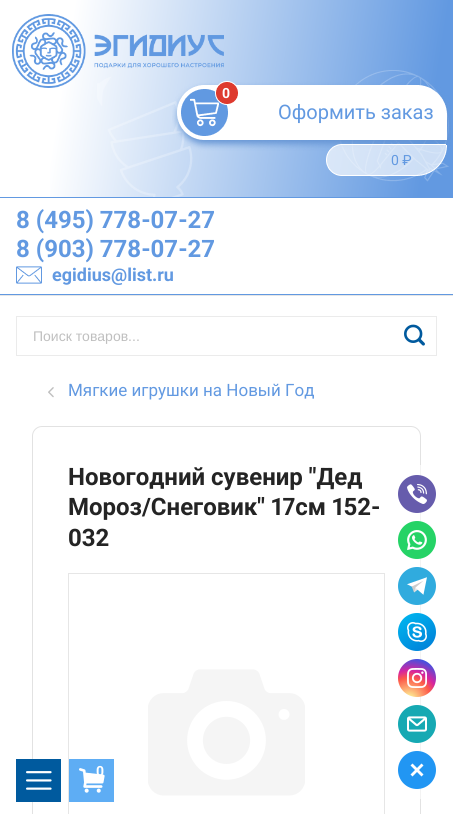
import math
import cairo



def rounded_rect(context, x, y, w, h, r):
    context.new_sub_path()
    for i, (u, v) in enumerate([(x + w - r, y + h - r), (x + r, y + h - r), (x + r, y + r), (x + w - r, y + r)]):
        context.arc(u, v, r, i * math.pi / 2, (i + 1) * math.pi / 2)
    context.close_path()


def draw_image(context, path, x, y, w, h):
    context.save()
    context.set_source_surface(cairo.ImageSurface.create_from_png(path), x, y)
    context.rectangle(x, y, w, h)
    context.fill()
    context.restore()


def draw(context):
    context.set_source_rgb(1, 1, 1)
    context.paint()
    gradient = cairo.LinearGradient(-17, 109, 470, 186)
    gradient.add_color_stop_rgba(0.15, 1, 1, 1, 1)
    gradient.add_color_stop_rgba(0.9, 98 / 255, 153 / 255, 225 / 255, 1)
    context.set_source(gradient)
    context.rectangle(50, 0, 403, 197)
    context.fill()
    context.set_source_rgb(230 / 255, 230 / 255, 230 / 255)
    context.rectangle(0, 295, 453, 1)
    context.fill()
    draw_image(context, "images/1.png", 97, 70, 352, 127)
    draw_image(context, "images/2.png", 12, 14, 212, 74)
    draw_image(context, "images/3.png", 172, 81, 279, 95)
    context.set_source_rgb(98 / 255, 153 / 255, 225 / 255)
    context.rectangle(0, 197, 453, 1)
    context.fill()
    context.rectangle(0, 294, 453, 1)
    context.fill()
    draw_image(context, "images/4.png", 16, 266, 26, 18)
    context.rectangle(16.5, 316.5, 420, 39)
    context.set_source_rgb(235 / 255, 235 / 255, 235 / 255)
    context.set_line_width(1)
    context.stroke()
    draw_image(context, "images/5.png", 404, 324, 21, 22)
    draw_image(context, "images/6.png", 48, 387, 6, 11)
    rounded_rect(context, 32.5, 426.5, 388, 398, 9.5)
    context.set_source_rgb(226 / 255, 226 / 255, 226 / 255)
    context.stroke()
    context.rectangle(68.5, 573.5, 316, 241)
    context.set_source_rgb(230 / 255, 230 / 255, 230 / 255)
    context.stroke()
    draw_image(context, "images/7.png", 148, 669, 157, 127)
    context.set_source_rgb(0, 90 / 255, 158 / 255)
    context.rectangle(16, 759, 45, 43)
    context.fill()
    draw_image(context, "images/8.png", 26, 771, 26, 19)
    context.set_source_rgb(94 / 255, 173 / 255, 244 / 255)
    context.rectangle(69, 759, 45, 43)
    context.fill()
    draw_image(context, "images/9.png", 79, 768, 26, 25)
    context.set_source_rgba(1, 1, 1, 0.6)
    rounded_rect(context, 388, 465, 58, 334, 6)
    context.fill()
    context.set_source_rgb(102 / 255, 92 / 255, 172 / 255)
    context.arc(417, 494, 19, 0, 2 * math.pi)
    context.fill()
    draw_image(context, "images/10.png", 407, 484, 20, 20)
    context.set_source_rgb(37 / 255, 211 / 255, 102 / 255)
    context.arc(417, 540, 19, 0, 2 * math.pi)
    context.fill()
    draw_image(context, "images/11.png", 407, 530, 20, 20)
    context.set_source_rgb(48 / 255, 171 / 255, 222 / 255)
    context.arc(417, 586, 19, 0, 2 * math.pi)
    context.fill()
    draw_image(context, "images/12.png", 407, 577, 20, 18)
    gradient = cairo.LinearGradient(402, 610, 432, 654)
    gradient.add_color_stop_rgba(0, 0, 186 / 255, 241 / 255, 1)
    gradient.add_color_stop_rgba(1, 0, 123 / 255, 214 / 255, 1)
    context.set_source(gradient)
    context.arc(417, 632, 19, 0, 2 * math.pi)
    context.fill()
    draw_image(context, "images/13.png", 407, 622, 20, 20)
    gradient = cairo.RadialGradient(409, 700, 0, 409, 700, 49)
    gradient.add_color_stop_rgba(0, 253 / 255, 244 / 255, 151 / 255, 1)
    gradient.add_color_stop_rgba(0.05, 253 / 255, 244 / 255, 151 / 255, 1)
    gradient.add_color_stop_rgba(0.45, 253 / 255, 89 / 255, 73 / 255, 1)
    gradient.add_color_stop_rgba(0.6, 214 / 255, 36 / 255, 159 / 255, 1)
    gradient.add_color_stop_rgba(0.9, 40 / 255, 90 / 255, 235 / 255, 1)
    context.set_source(gradient)
    context.arc(417, 678, 19, 0, 2 * math.pi)
    context.fill()
    draw_image(context, "images/14.png", 407, 668, 20, 20)
    context.set_source_rgb(22 / 255, 169 / 255, 179 / 255)
    context.arc(417, 724, 19, 0, 2 * math.pi)
    context.fill()
    draw_image(context, "images/15.png", 407, 716, 20, 16)
    context.set_source_rgb(33 / 255, 150 / 255, 243 / 255)
    context.arc(417, 770, 19, 0, 2 * math.pi)
    context.fill()
    context.set_source_rgb(1, 1, 1)
    context.new_path()
    context.move_to(412.5, 763.5)
    context.line_to(423.5, 774.5)
    context.line_to(421.5, 776.5)
    context.line_to(410.5, 765.5)
    context.close_path()
    context.fill()
    context.new_path()
    context.move_to(410.5, 774.5)
    context.line_to(421.5, 763.5)
    context.line_to(423.5, 765.5)
    context.line_to(412.5, 776.5)
    context.close_path()
    context.fill()
    context.select_font_face("Roboto", cairo.FontSlant.NORMAL, cairo.FontWeight.BOLD)
    context.set_font_size(14)
    context.move_to(222, 98)
    context.show_text("0")
    context.select_font_face("Roboto")
    context.set_font_size(20)
    context.set_source_rgb(98 / 255, 153 / 255, 225 / 255)
    context.move_to(278, 119)
    context.show_text("Оформить заказ")
    context.set_font_size(14)
    context.move_to(391, 165)
    context.show_text("0 ₽")
    context.select_font_face("Roboto", cairo.FontSlant.NORMAL, cairo.FontWeight.BOLD)
    context.set_font_size(24)
    context.move_to(16, 228)
    context.show_text("8 (495) 778-07-27")
    context.move_to(16, 257)
    context.show_text("8 (903) 778-07-27")
    context.set_font_size(18)
    context.move_to(52, 281)
    context.show_text("egidius@list.ru")
    context.select_font_face("Liberation Sans")
    context.set_font_size(14)
    context.set_source_rgb(191 / 255, 191 / 255, 191 / 255)
    context.move_to(33, 341)
    context.show_text("Поиск товаров...")
    context.select_font_face("Roboto")
    context.set_font_size(17)
    context.set_source_rgb(98 / 255, 153 / 255, 225 / 255)
    context.move_to(68, 396)
    context.show_text("Мягкие игрушки на Новый Год")
    context.select_font_face("Roboto", cairo.FontSlant.NORMAL, cairo.FontWeight.BOLD)
    context.set_font_size(24)
    context.set_source_rgb(36 / 255, 36 / 255, 36 / 255)
    context.move_to(68, 485)
    context.show_text("Новогодний сувенир \"Дед")
    context.select_font_face("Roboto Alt", cairo.FontSlant.NORMAL, cairo.FontWeight.BOLD)
    context.move_to(68, 515)
    context.show_text("Мороз/Снеговик\" 17см 152-")
    context.select_font_face("Roboto", cairo.FontSlant.NORMAL, cairo.FontWeight.BOLD)
    context.move_to(68, 546)
    context.show_text("032")
    context.set_font_size(14)
    context.set_source_rgb(1, 1, 1)
    context.move_to(96, 776)
    context.show_text("0")


surface = cairo.ImageSurface(cairo.Format.RGB24, 453, 814)
context = cairo.Context(surface)
options = cairo.FontOptions()
options.set_hint_metrics(cairo.HintMetrics.OFF)
options.set_hint_style(cairo.HintStyle.NONE)
context.set_font_options(options)
context.set_miter_limit(4)
draw(context)
surface.write_to_png("out.png")
